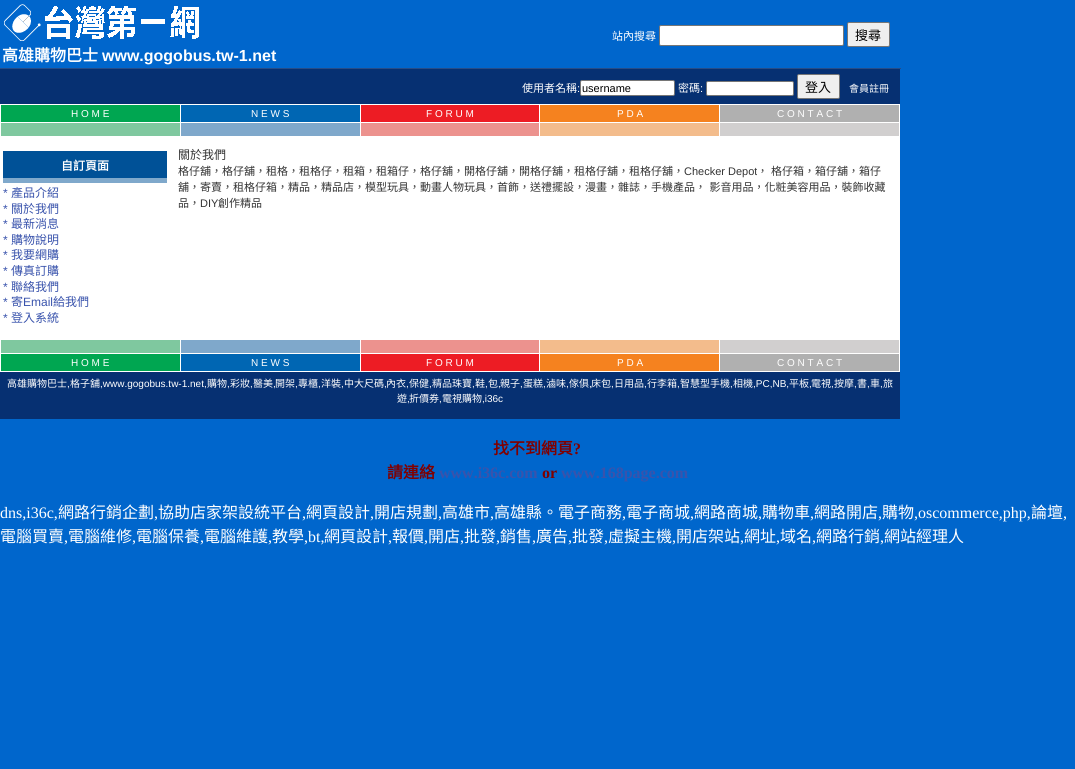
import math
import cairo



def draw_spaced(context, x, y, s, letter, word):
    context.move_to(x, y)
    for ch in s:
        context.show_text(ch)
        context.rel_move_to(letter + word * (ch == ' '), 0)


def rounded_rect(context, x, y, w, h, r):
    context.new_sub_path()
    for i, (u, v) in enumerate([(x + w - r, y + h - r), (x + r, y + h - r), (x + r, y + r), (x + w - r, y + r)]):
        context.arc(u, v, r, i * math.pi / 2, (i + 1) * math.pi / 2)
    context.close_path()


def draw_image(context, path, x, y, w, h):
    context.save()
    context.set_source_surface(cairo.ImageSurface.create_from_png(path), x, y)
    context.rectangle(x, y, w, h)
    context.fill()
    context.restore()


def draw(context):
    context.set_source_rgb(0, 102 / 255, 204 / 255)
    context.paint()
    context.set_source_rgb(1, 1, 1)
    rounded_rect(context, 659.5, 25.5, 184, 20, 1.5)
    context.fill_preserve()
    context.set_source_rgb(118 / 255, 118 / 255, 118 / 255)
    context.set_line_width(1)
    context.stroke()
    context.set_source_rgb(239 / 255, 239 / 255, 239 / 255)
    rounded_rect(context, 847.5, 22.5, 42, 24, 1.5)
    context.fill_preserve()
    context.set_source_rgb(118 / 255, 118 / 255, 118 / 255)
    context.stroke()
    draw_image(context, "images/1.png", 4, 4, 195, 37)
    context.set_source_rgb(6 / 255, 48 / 255, 114 / 255)
    context.rectangle(0, 69, 900, 35)
    context.fill()
    context.set_source_rgb(38 / 255, 76 / 255, 135 / 255)
    context.rectangle(0, 68, 901, 1)
    context.fill()
    context.set_source_rgb(1, 1, 1)
    rounded_rect(context, 580.5, 80.5, 94, 15, 1.5)
    context.fill_preserve()
    context.set_source_rgb(118 / 255, 118 / 255, 118 / 255)
    context.stroke()
    context.set_source_rgb(1, 1, 1)
    rounded_rect(context, 706.5, 81.5, 87, 14, 1.5)
    context.fill_preserve()
    context.set_source_rgb(118 / 255, 118 / 255, 118 / 255)
    context.stroke()
    context.set_source_rgb(239 / 255, 239 / 255, 239 / 255)
    rounded_rect(context, 797.5, 74.5, 42, 24, 1.5)
    context.fill_preserve()
    context.set_source_rgb(118 / 255, 118 / 255, 118 / 255)
    context.stroke()
    context.set_source_rgb(0, 166 / 255, 81 / 255)
    context.rectangle(1, 105, 179, 17)
    context.fill()
    context.set_source_rgb(1, 1, 1)
    context.rectangle(719, 104, 181, 1)
    context.fill()
    context.rectangle(719, 122, 181, 1)
    context.fill()
    context.rectangle(899, 122, 1, 15)
    context.fill()
    context.rectangle(719, 136, 181, 1)
    context.fill()
    context.rectangle(719, 122, 1, 15)
    context.fill()
    context.rectangle(539, 122, 181, 1)
    context.fill()
    context.rectangle(719, 104, 1, 19)
    context.fill()
    context.rectangle(539, 104, 181, 1)
    context.fill()
    context.rectangle(539, 136, 181, 1)
    context.fill()
    context.rectangle(539, 122, 1, 15)
    context.fill()
    context.rectangle(360, 122, 180, 1)
    context.fill()
    context.rectangle(539, 104, 1, 19)
    context.fill()
    context.rectangle(360, 104, 180, 1)
    context.fill()
    context.rectangle(360, 136, 180, 1)
    context.fill()
    context.rectangle(360, 122, 1, 15)
    context.fill()
    context.rectangle(180, 122, 181, 1)
    context.fill()
    context.rectangle(360, 104, 1, 19)
    context.fill()
    context.rectangle(180, 104, 181, 1)
    context.fill()
    context.rectangle(180, 136, 181, 1)
    context.fill()
    context.rectangle(180, 122, 1, 15)
    context.fill()
    context.rectangle(0, 122, 181, 1)
    context.fill()
    context.rectangle(180, 104, 1, 19)
    context.fill()
    context.rectangle(0, 104, 181, 1)
    context.fill()
    context.rectangle(0, 136, 181, 1)
    context.fill()
    context.rectangle(0, 122, 1, 15)
    context.fill()
    context.rectangle(0, 104, 1, 19)
    context.fill()
    context.set_source_rgb(0, 102 / 255, 179 / 255)
    context.rectangle(181, 105, 179, 17)
    context.fill()
    context.set_source_rgb(237 / 255, 28 / 255, 36 / 255)
    context.rectangle(361, 105, 178, 17)
    context.fill()
    context.set_source_rgb(245 / 255, 130 / 255, 31 / 255)
    context.rectangle(540, 105, 179, 17)
    context.fill()
    context.set_source_rgb(176 / 255, 176 / 255, 176 / 255)
    context.rectangle(720, 105, 179, 17)
    context.fill()
    context.set_source_rgb(1, 1, 1)
    context.rectangle(899, 104, 1, 19)
    context.fill()
    context.set_source_rgb(127 / 255, 200 / 255, 159 / 255)
    context.rectangle(1, 123, 179, 13)
    context.fill()
    context.set_source_rgb(127 / 255, 168 / 255, 203 / 255)
    context.rectangle(181, 123, 179, 13)
    context.fill()
    context.set_source_rgb(236 / 255, 146 / 255, 142 / 255)
    context.rectangle(361, 123, 178, 13)
    context.fill()
    context.set_source_rgb(243 / 255, 188 / 255, 140 / 255)
    context.rectangle(540, 123, 179, 13)
    context.fill()
    context.set_source_rgb(209 / 255, 207 / 255, 207 / 255)
    context.rectangle(720, 123, 179, 13)
    context.fill()
    context.set_source_rgb(1, 1, 1)
    context.rectangle(0, 137, 900, 202)
    context.fill()
    context.set_source_rgb(0, 81 / 255, 151 / 255)
    context.rectangle(3, 151, 164, 27)
    context.fill()
    context.set_source_rgb(127 / 255, 168 / 255, 203 / 255)
    context.rectangle(3, 178, 164, 5)
    context.fill()
    context.set_source_rgb(127 / 255, 200 / 255, 159 / 255)
    context.rectangle(1, 340, 179, 13)
    context.fill()
    context.set_source_rgb(1, 1, 1)
    context.rectangle(719, 339, 181, 1)
    context.fill()
    context.rectangle(719, 353, 181, 1)
    context.fill()
    context.rectangle(899, 353, 1, 19)
    context.fill()
    context.rectangle(719, 371, 181, 1)
    context.fill()
    context.rectangle(719, 353, 1, 19)
    context.fill()
    context.rectangle(539, 353, 181, 1)
    context.fill()
    context.rectangle(719, 339, 1, 15)
    context.fill()
    context.rectangle(539, 339, 181, 1)
    context.fill()
    context.rectangle(539, 371, 181, 1)
    context.fill()
    context.rectangle(539, 353, 1, 19)
    context.fill()
    context.rectangle(360, 353, 180, 1)
    context.fill()
    context.rectangle(539, 339, 1, 15)
    context.fill()
    context.rectangle(360, 339, 180, 1)
    context.fill()
    context.rectangle(360, 371, 180, 1)
    context.fill()
    context.rectangle(360, 353, 1, 19)
    context.fill()
    context.rectangle(180, 353, 181, 1)
    context.fill()
    context.rectangle(360, 339, 1, 15)
    context.fill()
    context.rectangle(180, 339, 181, 1)
    context.fill()
    context.rectangle(180, 371, 181, 1)
    context.fill()
    context.rectangle(180, 353, 1, 19)
    context.fill()
    context.rectangle(0, 353, 181, 1)
    context.fill()
    context.rectangle(180, 339, 1, 15)
    context.fill()
    context.rectangle(0, 339, 181, 1)
    context.fill()
    context.rectangle(0, 371, 181, 1)
    context.fill()
    context.rectangle(0, 353, 1, 19)
    context.fill()
    context.rectangle(0, 339, 1, 15)
    context.fill()
    context.set_source_rgb(127 / 255, 168 / 255, 203 / 255)
    context.rectangle(181, 340, 179, 13)
    context.fill()
    context.set_source_rgb(236 / 255, 146 / 255, 142 / 255)
    context.rectangle(361, 340, 178, 13)
    context.fill()
    context.set_source_rgb(243 / 255, 188 / 255, 140 / 255)
    context.rectangle(540, 340, 179, 13)
    context.fill()
    context.set_source_rgb(209 / 255, 207 / 255, 207 / 255)
    context.rectangle(720, 340, 179, 13)
    context.fill()
    context.set_source_rgb(1, 1, 1)
    context.rectangle(899, 339, 1, 15)
    context.fill()
    context.set_source_rgb(0, 166 / 255, 81 / 255)
    context.rectangle(1, 354, 179, 17)
    context.fill()
    context.set_source_rgb(0, 102 / 255, 179 / 255)
    context.rectangle(181, 354, 179, 17)
    context.fill()
    context.set_source_rgb(237 / 255, 28 / 255, 36 / 255)
    context.rectangle(361, 354, 178, 17)
    context.fill()
    context.set_source_rgb(245 / 255, 130 / 255, 31 / 255)
    context.rectangle(540, 354, 179, 17)
    context.fill()
    context.set_source_rgb(176 / 255, 176 / 255, 176 / 255)
    context.rectangle(720, 354, 179, 17)
    context.fill()
    context.set_source_rgb(6 / 255, 48 / 255, 114 / 255)
    context.rectangle(0, 372, 900, 47)
    context.fill()
    context.select_font_face("Noto Sans CJK TC")
    context.set_font_size(11)
    context.set_source_rgb(1, 1, 1)
    context.move_to(612, 40)
    context.show_text("站內搜尋")
    context.set_font_size(13)
    context.set_source_rgb(0, 0, 0)
    context.move_to(855, 40)
    context.show_text("搜尋")
    context.select_font_face("Noto Sans CJK TC", cairo.FontSlant.NORMAL, cairo.FontWeight.BOLD)
    context.set_font_size(16)
    context.set_source_rgb(1, 1, 1)
    context.move_to(2, 61)
    context.show_text("高雄購物巴士")
    context.select_font_face("Liberation Sans", cairo.FontSlant.NORMAL, cairo.FontWeight.BOLD)
    context.move_to(102, 61)
    context.show_text("www.gogobus.tw-1.net")
    context.select_font_face("Noto Sans CJK TC")
    context.set_font_size(11)
    context.move_to(522, 92)
    context.show_text("使用者名稱")
    context.select_font_face("Liberation Sans")
    context.move_to(577, 92)
    context.show_text(":")
    context.set_source_rgb(0, 0, 0)
    context.move_to(582, 92)
    context.show_text("username")
    context.select_font_face("Noto Sans CJK TC")
    context.set_source_rgb(1, 1, 1)
    context.move_to(678, 92)
    context.show_text("密碼")
    context.select_font_face("Liberation Sans")
    context.move_to(700, 92)
    context.show_text(":")
    context.select_font_face("Noto Sans CJK TC")
    context.set_font_size(13)
    context.set_source_rgb(0, 0, 0)
    context.move_to(805, 92)
    context.show_text("登入")
    context.set_font_size(10)
    context.set_source_rgb(1, 1, 1)
    context.move_to(849, 92)
    context.show_text("會員註冊")
    context.select_font_face("Liberation Sans")
    context.move_to(71, 117)
    context.show_text("H O M E")
    context.move_to(251, 117)
    context.show_text("N E W S")
    context.move_to(426, 117)
    context.show_text("F O R U M")
    context.move_to(617, 117)
    context.show_text("P D A")
    context.move_to(777, 117)
    context.show_text("C O N T A C T")
    context.select_font_face("Noto Sans CJK TC", cairo.FontSlant.NORMAL, cairo.FontWeight.BOLD)
    context.set_font_size(12)
    context.move_to(61, 170)
    context.show_text("自訂頁面")
    context.select_font_face("Liberation Sans")
    context.set_source_rgb(57 / 255, 83 / 255, 172 / 255)
    context.move_to(3, 197)
    context.show_text("*")
    context.select_font_face("Noto Sans CJK TC")
    context.move_to(11, 197)
    context.show_text("產品介紹")
    context.select_font_face("Liberation Sans")
    context.move_to(3, 213)
    context.show_text("*")
    context.select_font_face("Noto Sans CJK TC")
    context.move_to(11, 213)
    context.show_text("關於我們")
    context.select_font_face("Liberation Sans")
    context.move_to(3, 228)
    context.show_text("*")
    context.select_font_face("Noto Sans CJK TC")
    context.move_to(11, 228)
    context.show_text("最新消息")
    context.select_font_face("Liberation Sans")
    context.move_to(3, 244)
    context.show_text("*")
    context.select_font_face("Noto Sans CJK TC")
    context.move_to(11, 244)
    context.show_text("購物說明")
    context.select_font_face("Liberation Sans")
    context.move_to(3, 259)
    context.show_text("*")
    context.select_font_face("Noto Sans CJK TC")
    context.move_to(11, 259)
    context.show_text("我要網購")
    context.select_font_face("Liberation Sans")
    context.move_to(3, 275)
    context.show_text("*")
    context.select_font_face("Noto Sans CJK TC")
    context.move_to(11, 275)
    context.show_text("傳真訂購")
    context.select_font_face("Liberation Sans")
    context.move_to(3, 291)
    context.show_text("*")
    context.select_font_face("Noto Sans CJK TC")
    context.move_to(11, 291)
    context.show_text("聯絡我們")
    context.select_font_face("Liberation Sans")
    context.move_to(3, 306)
    context.show_text("*")
    context.select_font_face("Noto Sans CJK TC")
    context.move_to(11, 306)
    context.show_text("寄")
    context.select_font_face("Liberation Sans")
    context.move_to(23, 306)
    context.show_text("Email")
    context.select_font_face("Noto Sans CJK TC")
    context.move_to(53, 306)
    context.show_text("給我們")
    context.select_font_face("Liberation Sans")
    context.move_to(3, 322)
    context.show_text("*")
    context.select_font_face("Noto Sans CJK TC")
    context.move_to(11, 322)
    context.show_text("登入系統")
    context.set_source_rgb(51 / 255, 51 / 255, 51 / 255)
    context.move_to(178, 159)
    context.show_text("關於我們")
    context.set_font_size(11)
    context.move_to(178, 175)
    context.show_text("格仔舖，格仔舖，租格，租格仔，租箱，租箱仔，格仔舖，開格仔舖，開格仔舖，租格仔舖，租格仔舖，")
    context.select_font_face("Liberation Sans")
    context.move_to(684, 175)
    context.show_text("Checker Depot")
    context.select_font_face("Noto Sans CJK TC")
    context.move_to(757, 175)
    context.show_text("，")
    context.move_to(771, 175)
    context.show_text("格仔箱，箱仔舖，箱仔")
    draw_spaced(context, 178, 191, "舖，寄賣，租格仔箱，精品，精品店，模型玩具，動畫人物玩具，首飾，送禮擺設，漫畫，雜誌，手機產品， 影音用品，化粧美容用品，裝飾收藏", 0, 1)
    context.move_to(178, 207)
    context.show_text("品，")
    context.select_font_face("Liberation Sans")
    context.move_to(200, 207)
    context.show_text("DIY")
    context.select_font_face("Noto Sans CJK TC")
    context.move_to(218, 207)
    context.show_text("創作精品")
    context.select_font_face("Liberation Sans")
    context.set_font_size(10)
    context.set_source_rgb(1, 1, 1)
    context.move_to(71, 366)
    context.show_text("H O M E")
    context.move_to(251, 366)
    context.show_text("N E W S")
    context.move_to(426, 366)
    context.show_text("F O R U M")
    context.move_to(617, 366)
    context.show_text("P D A")
    context.move_to(777, 366)
    context.show_text("C O N T A C T")
    context.select_font_face("Noto Sans CJK TC")
    context.move_to(7, 387)
    context.show_text("高雄購物巴士")
    context.select_font_face("Liberation Sans")
    context.move_to(67, 387)
    context.show_text(",")
    context.select_font_face("Noto Sans CJK TC")
    context.move_to(70, 387)
    context.show_text("格子舖")
    context.select_font_face("Liberation Sans")
    context.move_to(100, 387)
    context.show_text(",www.gogobus.tw-1.net,")
    context.select_font_face("Noto Sans CJK TC")
    context.move_to(207, 387)
    context.show_text("購物")
    context.select_font_face("Liberation Sans")
    context.move_to(227, 387)
    context.show_text(",")
    context.select_font_face("Noto Sans CJK TC")
    context.move_to(230, 387)
    context.show_text("彩妝")
    context.select_font_face("Liberation Sans")
    context.move_to(250, 387)
    context.show_text(",")
    context.select_font_face("Noto Sans CJK TC")
    context.move_to(253, 387)
    context.show_text("醫美")
    context.select_font_face("Liberation Sans")
    context.move_to(273, 387)
    context.show_text(",")
    context.select_font_face("Noto Sans CJK TC")
    context.move_to(275, 387)
    context.show_text("開架")
    context.select_font_face("Liberation Sans")
    context.move_to(295, 387)
    context.show_text(",")
    context.select_font_face("Noto Sans CJK TC")
    context.move_to(298, 387)
    context.show_text("專櫃")
    context.select_font_face("Liberation Sans")
    context.move_to(318, 387)
    context.show_text(",")
    context.select_font_face("Noto Sans CJK TC")
    context.move_to(321, 387)
    context.show_text("洋裝")
    context.select_font_face("Liberation Sans")
    context.move_to(341, 387)
    context.show_text(",")
    context.select_font_face("Noto Sans CJK TC")
    context.move_to(344, 387)
    context.show_text("中大尺碼")
    context.select_font_face("Liberation Sans")
    context.move_to(384, 387)
    context.show_text(",")
    context.select_font_face("Noto Sans CJK TC")
    context.move_to(386, 387)
    context.show_text("內衣")
    context.select_font_face("Liberation Sans")
    context.move_to(406, 387)
    context.show_text(",")
    context.select_font_face("Noto Sans CJK TC")
    context.move_to(409, 387)
    context.show_text("保健")
    context.select_font_face("Liberation Sans")
    context.move_to(429, 387)
    context.show_text(",")
    context.select_font_face("Noto Sans CJK TC")
    context.move_to(432, 387)
    context.show_text("精品珠寶")
    context.select_font_face("Liberation Sans")
    context.move_to(472, 387)
    context.show_text(",")
    context.select_font_face("Noto Sans CJK TC")
    context.move_to(475, 387)
    context.show_text("鞋")
    context.select_font_face("Liberation Sans")
    context.move_to(485, 387)
    context.show_text(",")
    context.select_font_face("Noto Sans CJK TC")
    context.move_to(488, 387)
    context.show_text("包")
    context.select_font_face("Liberation Sans")
    context.move_to(498, 387)
    context.show_text(",")
    context.select_font_face("Noto Sans CJK TC")
    context.move_to(500, 387)
    context.show_text("親子")
    context.select_font_face("Liberation Sans")
    context.move_to(520, 387)
    context.show_text(",")
    context.select_font_face("Noto Sans CJK TC")
    context.move_to(523, 387)
    context.show_text("蛋糕")
    context.select_font_face("Liberation Sans")
    context.move_to(543, 387)
    context.show_text(",")
    context.select_font_face("Noto Sans CJK TC")
    context.move_to(546, 387)
    context.show_text("滷味")
    context.select_font_face("Liberation Sans")
    context.move_to(566, 387)
    context.show_text(",")
    context.select_font_face("Noto Sans CJK TC")
    context.move_to(569, 387)
    context.show_text("傢俱")
    context.select_font_face("Liberation Sans")
    context.move_to(589, 387)
    context.show_text(",")
    context.select_font_face("Noto Sans CJK TC")
    context.move_to(591, 387)
    context.show_text("床包")
    context.select_font_face("Liberation Sans")
    context.move_to(611, 387)
    context.show_text(",")
    context.select_font_face("Noto Sans CJK TC")
    context.move_to(614, 387)
    context.show_text("日用品")
    context.select_font_face("Liberation Sans")
    context.move_to(644, 387)
    context.show_text(",")
    context.select_font_face("Noto Sans CJK TC")
    context.move_to(647, 387)
    context.show_text("行李箱")
    context.select_font_face("Liberation Sans")
    context.move_to(677, 387)
    context.show_text(",")
    context.select_font_face("Noto Sans CJK TC")
    context.move_to(680, 387)
    context.show_text("智慧型手機")
    context.select_font_face("Liberation Sans")
    context.move_to(730, 387)
    context.show_text(",")
    context.select_font_face("Noto Sans CJK TC")
    context.move_to(733, 387)
    context.show_text("相機")
    context.select_font_face("Liberation Sans")
    context.move_to(753, 387)
    context.show_text(",PC,NB,")
    context.select_font_face("Noto Sans CJK TC")
    context.move_to(789, 387)
    context.show_text("平板")
    context.select_font_face("Liberation Sans")
    context.move_to(809, 387)
    context.show_text(",")
    context.select_font_face("Noto Sans CJK TC")
    context.move_to(811, 387)
    context.show_text("電視")
    context.select_font_face("Liberation Sans")
    context.move_to(831, 387)
    context.show_text(",")
    context.select_font_face("Noto Sans CJK TC")
    context.move_to(834, 387)
    context.show_text("按摩")
    context.select_font_face("Liberation Sans")
    context.move_to(854, 387)
    context.show_text(",")
    context.select_font_face("Noto Sans CJK TC")
    context.move_to(857, 387)
    context.show_text("書")
    context.select_font_face("Liberation Sans")
    context.move_to(867, 387)
    context.show_text(",")
    context.select_font_face("Noto Sans CJK TC")
    context.move_to(870, 387)
    context.show_text("車")
    context.select_font_face("Liberation Sans")
    context.move_to(880, 387)
    context.show_text(",")
    context.select_font_face("Noto Sans CJK TC")
    context.move_to(883, 387)
    context.show_text("旅")
    context.move_to(397, 402)
    context.show_text("遊")
    context.select_font_face("Liberation Sans")
    context.move_to(407, 402)
    context.show_text(",")
    context.select_font_face("Noto Sans CJK TC")
    context.move_to(409, 402)
    context.show_text("折價券")
    context.select_font_face("Liberation Sans")
    context.move_to(439, 402)
    context.show_text(",")
    context.select_font_face("Noto Sans CJK TC")
    context.move_to(442, 402)
    context.show_text("電視購物")
    context.select_font_face("Liberation Sans")
    context.move_to(482, 402)
    context.show_text(",i36c")
    context.select_font_face("Noto Sans CJK TC", cairo.FontSlant.NORMAL, cairo.FontWeight.BOLD)
    context.set_font_size(16)
    context.set_source_rgb(128 / 255, 0, 0)
    context.move_to(493, 454)
    context.show_text("找不到網頁")
    context.select_font_face("Liberation Serif", cairo.FontSlant.NORMAL, cairo.FontWeight.BOLD)
    context.move_to(573, 454)
    context.show_text("?")
    context.select_font_face("Noto Sans CJK TC", cairo.FontSlant.NORMAL, cairo.FontWeight.BOLD)
    context.move_to(387, 478)
    context.show_text("請連絡")
    context.select_font_face("Liberation Serif", cairo.FontSlant.NORMAL, cairo.FontWeight.BOLD)
    context.set_source_rgb(57 / 255, 83 / 255, 172 / 255)
    context.move_to(439, 478)
    context.show_text("www.i36c.com")
    context.set_source_rgb(128 / 255, 0, 0)
    context.move_to(542, 478)
    context.show_text("or")
    context.set_source_rgb(57 / 255, 83 / 255, 172 / 255)
    context.move_to(561, 478)
    context.show_text("www.168page.com")
    context.select_font_face("Liberation Serif")
    context.set_source_rgb(1, 1, 1)
    context.move_to(0, 518)
    context.show_text("dns,i36c,")
    context.select_font_face("Noto Sans CJK TC")
    context.move_to(58, 518)
    context.show_text("網路行銷企劃")
    context.select_font_face("Liberation Serif")
    context.move_to(154, 518)
    context.show_text(",")
    context.select_font_face("Noto Sans CJK TC")
    context.move_to(158, 518)
    context.show_text("協助店家架設統平台")
    context.select_font_face("Liberation Serif")
    context.move_to(302, 518)
    context.show_text(",")
    context.select_font_face("Noto Sans CJK TC")
    context.move_to(306, 518)
    context.show_text("網頁設計")
    context.select_font_face("Liberation Serif")
    context.move_to(370, 518)
    context.show_text(",")
    context.select_font_face("Noto Sans CJK TC")
    context.move_to(374, 518)
    context.show_text("開店規劃")
    context.select_font_face("Liberation Serif")
    context.move_to(438, 518)
    context.show_text(",")
    context.select_font_face("Noto Sans CJK TC")
    context.move_to(442, 518)
    context.show_text("高雄市")
    context.select_font_face("Liberation Serif")
    context.move_to(490, 518)
    context.show_text(",")
    context.select_font_face("Noto Sans CJK TC")
    context.move_to(494, 518)
    context.show_text("高雄縣。電子商務")
    context.select_font_face("Liberation Serif")
    context.move_to(622, 518)
    context.show_text(",")
    context.select_font_face("Noto Sans CJK TC")
    context.move_to(626, 518)
    context.show_text("電子商城")
    context.select_font_face("Liberation Serif")
    context.move_to(690, 518)
    context.show_text(",")
    context.select_font_face("Noto Sans CJK TC")
    context.move_to(694, 518)
    context.show_text("網路商城")
    context.select_font_face("Liberation Serif")
    context.move_to(758, 518)
    context.show_text(",")
    context.select_font_face("Noto Sans CJK TC")
    context.move_to(762, 518)
    context.show_text("購物車")
    context.select_font_face("Liberation Serif")
    context.move_to(810, 518)
    context.show_text(",")
    context.select_font_face("Noto Sans CJK TC")
    context.move_to(814, 518)
    context.show_text("網路開店")
    context.select_font_face("Liberation Serif")
    context.move_to(878, 518)
    context.show_text(",")
    context.select_font_face("Noto Sans CJK TC")
    context.move_to(882, 518)
    context.show_text("購物")
    context.select_font_face("Liberation Serif")
    context.move_to(914, 518)
    context.show_text(",oscommerce,php,")
    context.select_font_face("Noto Sans CJK TC")
    context.move_to(1031, 518)
    context.show_text("論壇")
    context.select_font_face("Liberation Serif")
    context.move_to(1063, 518)
    context.show_text(",")
    context.select_font_face("Noto Sans CJK TC")
    context.move_to(0, 542)
    context.show_text("電腦買賣")
    context.select_font_face("Liberation Serif")
    context.move_to(64, 542)
    context.show_text(",")
    context.select_font_face("Noto Sans CJK TC")
    context.move_to(68, 542)
    context.show_text("電腦維修")
    context.select_font_face("Liberation Serif")
    context.move_to(132, 542)
    context.show_text(",")
    context.select_font_face("Noto Sans CJK TC")
    context.move_to(136, 542)
    context.show_text("電腦保養")
    context.select_font_face("Liberation Serif")
    context.move_to(200, 542)
    context.show_text(",")
    context.select_font_face("Noto Sans CJK TC")
    context.move_to(204, 542)
    context.show_text("電腦維護")
    context.select_font_face("Liberation Serif")
    context.move_to(268, 542)
    context.show_text(",")
    context.select_font_face("Noto Sans CJK TC")
    context.move_to(272, 542)
    context.show_text("教學")
    context.select_font_face("Liberation Serif")
    context.move_to(304, 542)
    context.show_text(",bt,")
    context.select_font_face("Noto Sans CJK TC")
    context.move_to(324, 542)
    context.show_text("網頁設計")
    context.select_font_face("Liberation Serif")
    context.move_to(388, 542)
    context.show_text(",")
    context.select_font_face("Noto Sans CJK TC")
    context.move_to(392, 542)
    context.show_text("報價")
    context.select_font_face("Liberation Serif")
    context.move_to(424, 542)
    context.show_text(",")
    context.select_font_face("Noto Sans CJK TC")
    context.move_to(428, 542)
    context.show_text("開店")
    context.select_font_face("Liberation Serif")
    context.move_to(460, 542)
    context.show_text(",")
    context.select_font_face("Noto Sans CJK TC")
    context.move_to(464, 542)
    context.show_text("批發")
    context.select_font_face("Liberation Serif")
    context.move_to(496, 542)
    context.show_text(",")
    context.select_font_face("Noto Sans CJK TC")
    context.move_to(500, 542)
    context.show_text("銷售")
    context.select_font_face("Liberation Serif")
    context.move_to(532, 542)
    context.show_text(",")
    context.select_font_face("Noto Sans CJK TC")
    context.move_to(536, 542)
    context.show_text("廣告")
    context.select_font_face("Liberation Serif")
    context.move_to(568, 542)
    context.show_text(",")
    context.select_font_face("Noto Sans CJK TC")
    context.move_to(572, 542)
    context.show_text("批發")
    context.select_font_face("Liberation Serif")
    context.move_to(604, 542)
    context.show_text(",")
    context.select_font_face("Noto Sans CJK TC")
    context.move_to(608, 542)
    context.show_text("虛擬主機")
    context.select_font_face("Liberation Serif")
    context.move_to(672, 542)
    context.show_text(",")
    context.select_font_face("Noto Sans CJK TC")
    context.move_to(676, 542)
    context.show_text("開店架站")
    context.select_font_face("Liberation Serif")
    context.move_to(740, 542)
    context.show_text(",")
    context.select_font_face("Noto Sans CJK TC")
    context.move_to(744, 542)
    context.show_text("網址")
    context.select_font_face("Liberation Serif")
    context.move_to(776, 542)
    context.show_text(",")
    context.select_font_face("Noto Sans CJK TC")
    context.move_to(780, 542)
    context.show_text("域名")
    context.select_font_face("Liberation Serif")
    context.move_to(812, 542)
    context.show_text(",")
    context.select_font_face("Noto Sans CJK TC")
    context.move_to(816, 542)
    context.show_text("網路行銷")
    context.select_font_face("Liberation Serif")
    context.move_to(880, 542)
    context.show_text(",")
    context.select_font_face("Noto Sans CJK TC")
    context.move_to(884, 542)
    context.show_text("網站經理人")


surface = cairo.ImageSurface(cairo.Format.RGB24, 1075, 769)
context = cairo.Context(surface)
options = cairo.FontOptions()
options.set_hint_metrics(cairo.HintMetrics.OFF)
options.set_hint_style(cairo.HintStyle.NONE)
context.set_font_options(options)
context.set_miter_limit(4)
draw(context)
surface.write_to_png("out.png")
